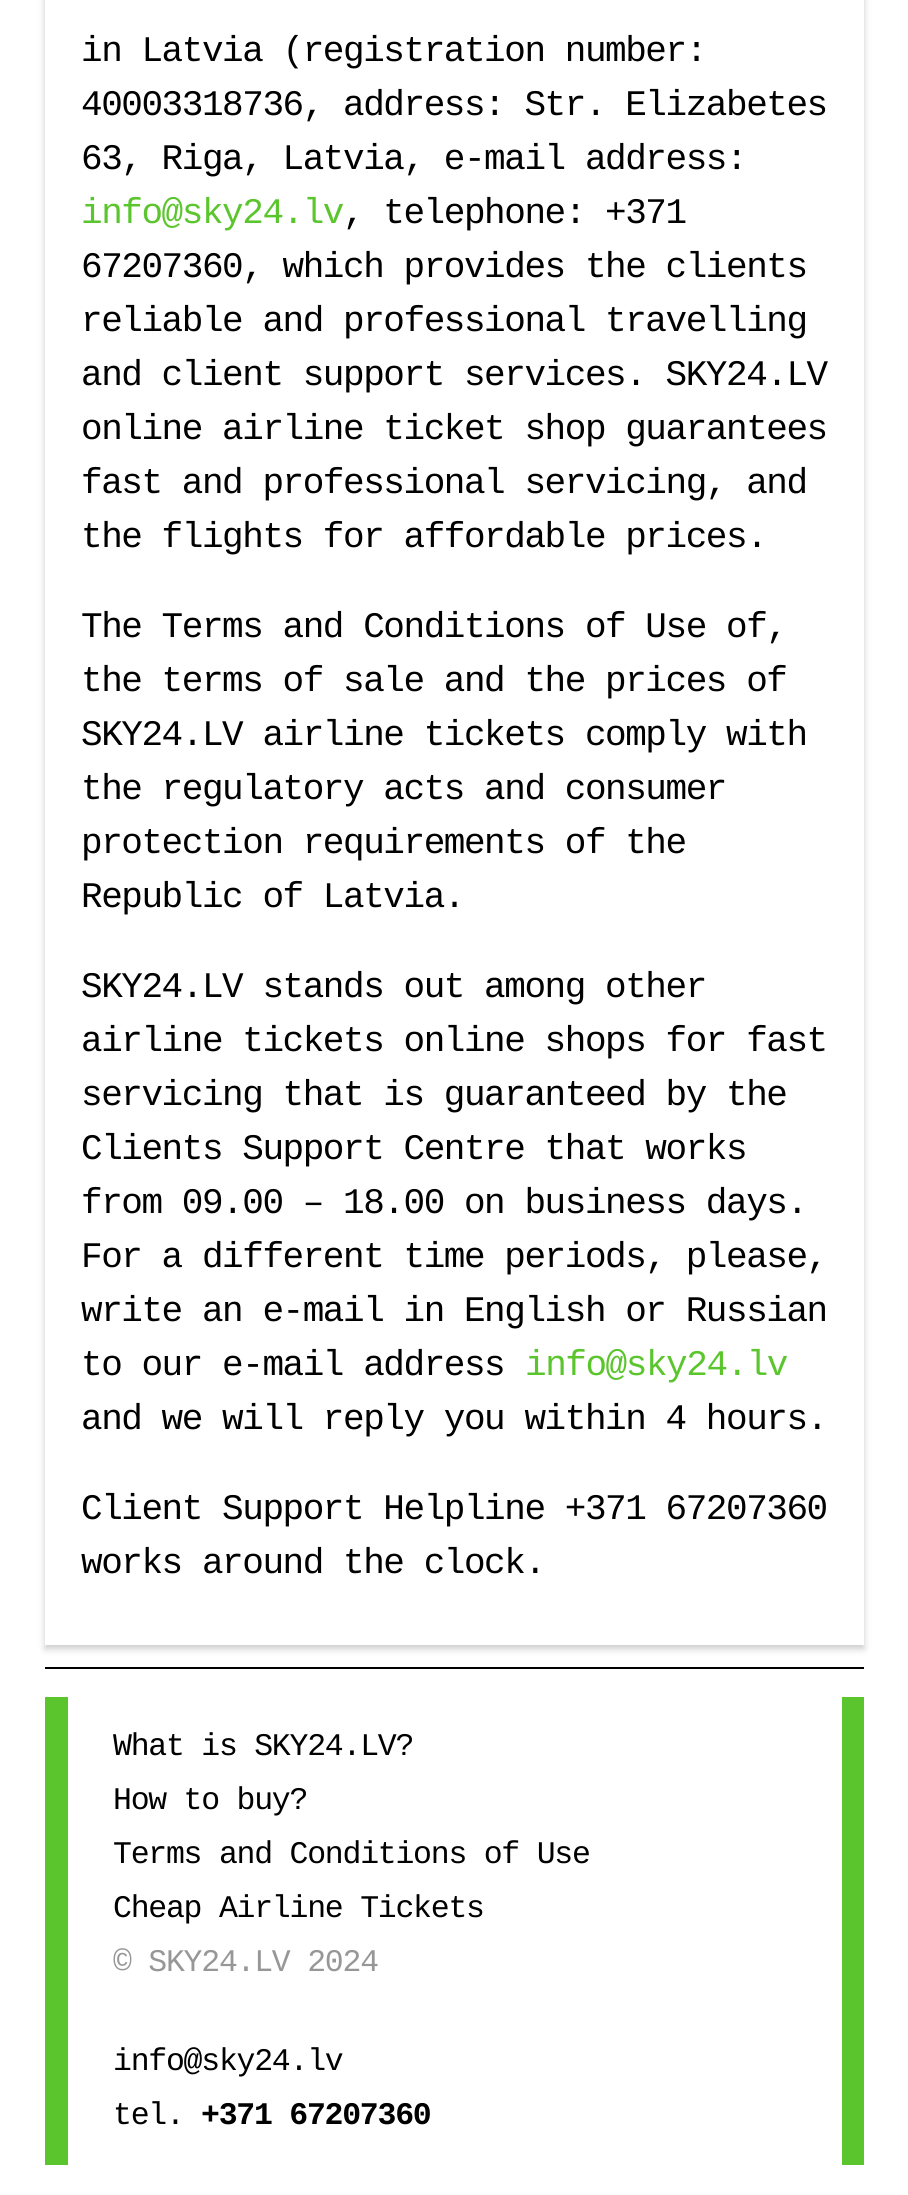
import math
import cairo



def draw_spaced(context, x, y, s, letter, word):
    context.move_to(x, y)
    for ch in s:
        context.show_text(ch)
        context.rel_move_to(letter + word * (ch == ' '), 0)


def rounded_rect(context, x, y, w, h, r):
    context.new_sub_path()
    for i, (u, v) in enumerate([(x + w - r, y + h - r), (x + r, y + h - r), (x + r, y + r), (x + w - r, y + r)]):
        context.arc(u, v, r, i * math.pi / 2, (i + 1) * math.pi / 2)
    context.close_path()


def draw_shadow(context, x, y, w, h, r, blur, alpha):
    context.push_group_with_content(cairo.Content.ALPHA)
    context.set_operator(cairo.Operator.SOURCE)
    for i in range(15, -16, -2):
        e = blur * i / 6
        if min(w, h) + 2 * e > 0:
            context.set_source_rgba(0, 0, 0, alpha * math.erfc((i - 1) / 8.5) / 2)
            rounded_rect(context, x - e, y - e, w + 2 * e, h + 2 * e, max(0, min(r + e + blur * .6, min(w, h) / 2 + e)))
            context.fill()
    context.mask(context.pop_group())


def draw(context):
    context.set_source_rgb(1, 1, 1)
    context.paint()
    context.set_source_rgb(0, 0, 0)
    draw_shadow(context, 45, -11, 819, 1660, 0, 3.5, 0.2)
    context.set_source_rgb(1, 1, 1)
    context.rectangle(45, 0, 819, 1645)
    context.fill()
    context.set_source_rgb(0, 0, 0)
    context.rectangle(45, 1667, 819, 2)
    context.fill()
    context.set_source_rgb(91 / 255, 197 / 255, 45 / 255)
    context.rectangle(842, 1697, 22, 468)
    context.fill()
    context.rectangle(45, 1697, 23, 468)
    context.fill()
    context.select_font_face("Liberation Mono")
    context.set_font_size(36)
    context.set_source_rgb(0, 0, 0)
    draw_spaced(context, 81, 61, "in Latvia (registration number:", -1.45, 0)
    draw_spaced(context, 81, 115, "40003318736, address: Str. Elizabetes", -1.45, 0)
    draw_spaced(context, 81, 169, "63, Riga, Latvia, e-mail address:", -1.45, 0)
    context.set_source_rgb(91 / 255, 197 / 255, 45 / 255)
    draw_spaced(context, 81, 223, "info@sky24.lv", -1.45, 0)
    context.set_source_rgb(0, 0, 0)
    draw_spaced(context, 343, 223, ", telephone: +371", -1.45, 0)
    draw_spaced(context, 81, 277, "67207360, which provides the clients", -1.45, 0)
    draw_spaced(context, 81, 331, "reliable and professional travelling", -1.45, 0)
    draw_spaced(context, 81, 385, "and client support services. SKY24.LV", -1.45, 0)
    draw_spaced(context, 81, 439, "online airline ticket shop guarantees", -1.45, 0)
    draw_spaced(context, 81, 493, "fast and professional servicing, and", -1.45, 0)
    draw_spaced(context, 81, 547, "the flights for affordable prices.", -1.45, 0)
    draw_spaced(context, 81, 637, "The Terms and Conditions of Use of,", -1.45, 0)
    draw_spaced(context, 81, 691, "the terms of sale and the prices of", -1.45, 0)
    draw_spaced(context, 81, 745, "SKY24.LV airline tickets comply with", -1.45, 0)
    draw_spaced(context, 81, 799, "the regulatory acts and consumer", -1.45, 0)
    draw_spaced(context, 81, 853, "protection requirements of the", -1.45, 0)
    draw_spaced(context, 81, 907, "Republic of Latvia.", -1.45, 0)
    draw_spaced(context, 81, 997, "SKY24.LV stands out among other", -1.45, 0)
    draw_spaced(context, 81, 1051, "airline tickets online shops for fast", -1.45, 0)
    draw_spaced(context, 81, 1105, "servicing that is guaranteed by the", -1.45, 0)
    draw_spaced(context, 81, 1159, "Clients Support Centre that works", -1.45, 0)
    draw_spaced(context, 81, 1213, "from 09.00 – 18.00 on business days.", -1.45, 0)
    draw_spaced(context, 81, 1267, "For a different time periods, please,", -1.45, 0)
    draw_spaced(context, 81, 1321, "write an e-mail in English or Russian", -1.45, 0)
    draw_spaced(context, 81, 1375, "to our e-mail address", -1.45, 0)
    context.set_source_rgb(91 / 255, 197 / 255, 45 / 255)
    draw_spaced(context, 525, 1375, "info@sky24.lv", -1.45, 0)
    context.set_source_rgb(0, 0, 0)
    draw_spaced(context, 81, 1429, "and we will reply you within 4 hours.", -1.45, 0)
    draw_spaced(context, 81, 1519, "Client Support Helpline +371 67207360", -1.45, 0)
    draw_spaced(context, 81, 1573, "works around the clock.", -1.45, 0)
    context.set_font_size(31.5)
    draw_spaced(context, 113, 1755, "What is SKY24.LV?", -1.25, 0)
    draw_spaced(context, 113, 1809, "How to buy?", -1.25, 0)
    draw_spaced(context, 113, 1863, "Terms and Conditions of Use", -1.25, 0)
    draw_spaced(context, 113, 1917, "Cheap Airline Tickets", -1.25, 0)
    context.set_source_rgb(151 / 255, 151 / 255, 151 / 255)
    draw_spaced(context, 113, 1971, "© SKY24.LV 2024", -1.25, 0)
    context.set_source_rgb(0, 0, 0)
    draw_spaced(context, 113, 2070, "info@sky24.lv", -1.25, 0)
    draw_spaced(context, 113, 2124, "tel.", -1.25, 0)
    context.select_font_face("Liberation Mono", cairo.FontSlant.NORMAL, cairo.FontWeight.BOLD)
    draw_spaced(context, 201, 2124, "+371 67207360", -1.25, 0)


surface = cairo.ImageSurface(cairo.Format.RGB24, 908, 2195)
context = cairo.Context(surface)
options = cairo.FontOptions()
options.set_hint_metrics(cairo.HintMetrics.OFF)
options.set_hint_style(cairo.HintStyle.NONE)
context.set_font_options(options)
context.set_miter_limit(4)
draw(context)
surface.write_to_png("out.png")
